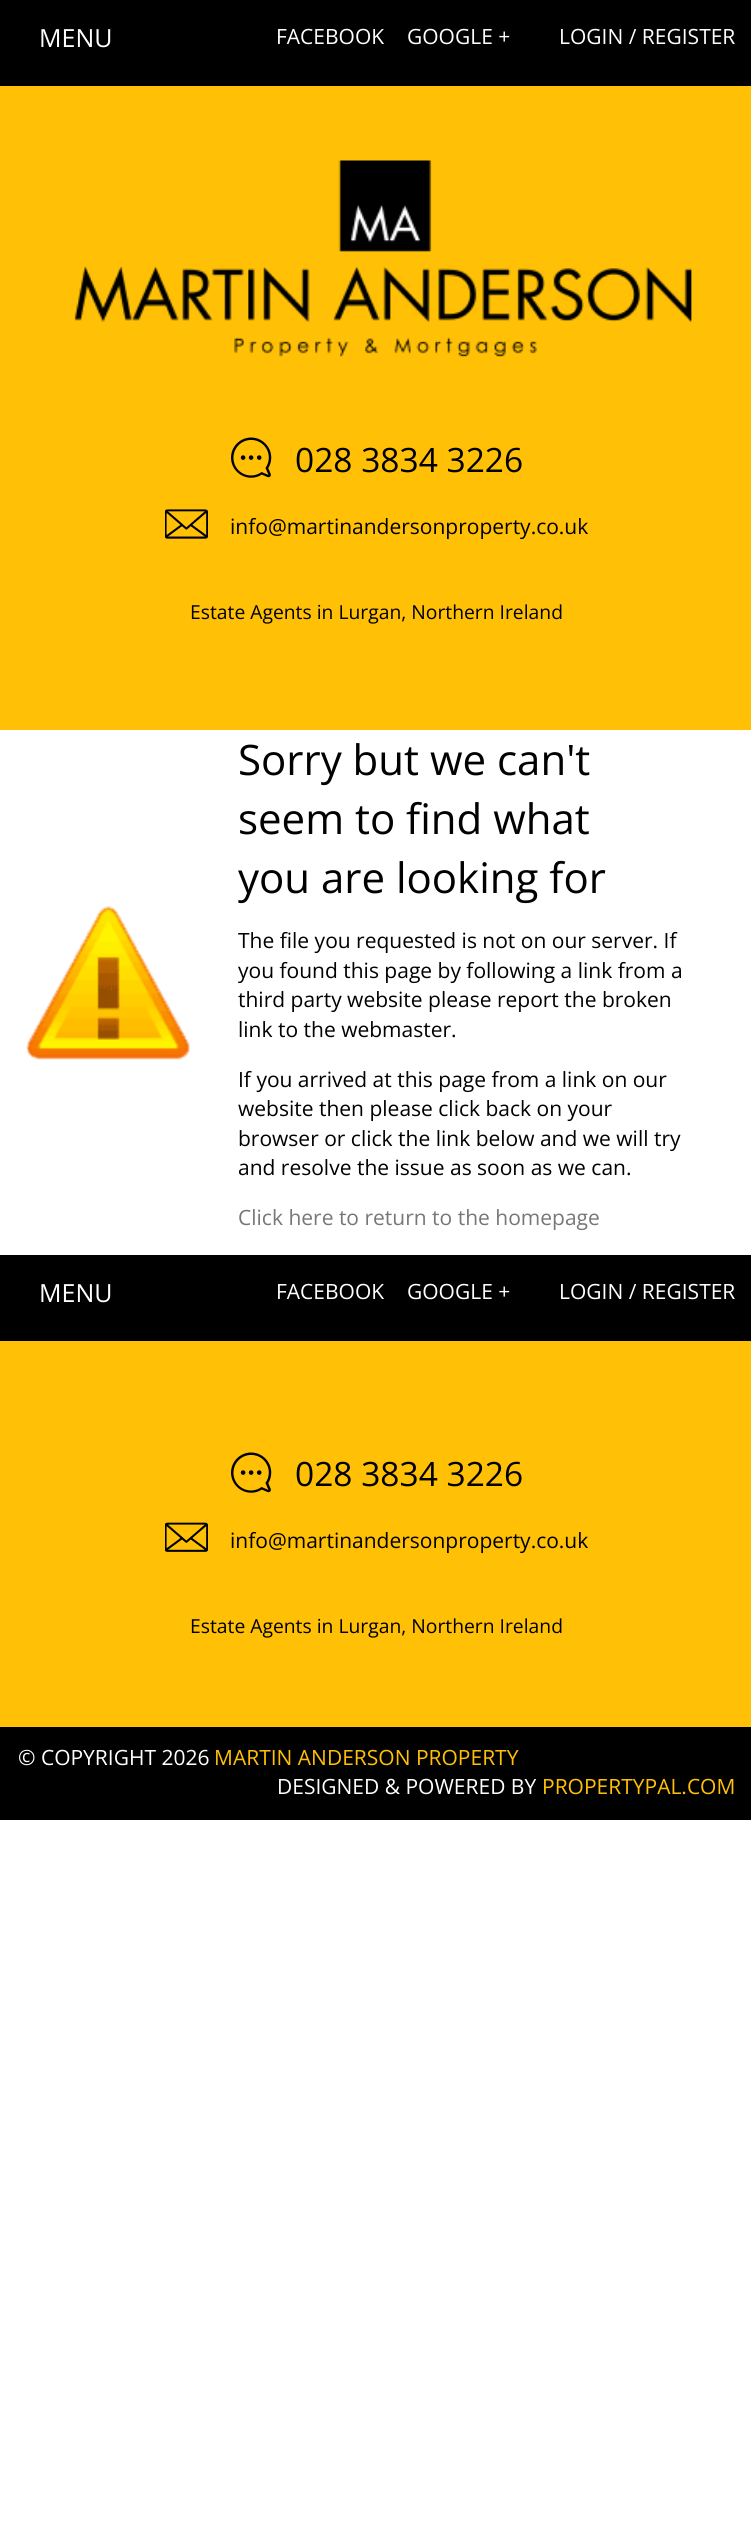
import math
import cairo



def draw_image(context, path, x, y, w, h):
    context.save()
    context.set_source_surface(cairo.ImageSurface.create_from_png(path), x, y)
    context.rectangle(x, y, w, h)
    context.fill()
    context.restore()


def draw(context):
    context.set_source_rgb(1, 1, 1)
    context.paint()
    context.set_source_rgb(0, 0, 0)
    context.rectangle(0, 0, 751, 86)
    context.fill()
    context.set_source_rgb(1, 192 / 255, 5 / 255)
    context.rectangle(0, 86, 751, 644)
    context.fill()
    draw_image(context, "images/1.png", 74, 160, 618, 197)
    draw_image(context, "images/2.png", 231, 437, 41, 41)
    draw_image(context, "images/3.png", 165, 509, 43, 30)
    draw_image(context, "images/4.png", 26, 906, 165, 154)
    context.set_source_rgb(0, 0, 0)
    context.rectangle(0, 1255, 751, 86)
    context.fill()
    context.set_source_rgb(1, 192 / 255, 5 / 255)
    context.rectangle(0, 1341, 751, 386)
    context.fill()
    draw_image(context, "images/2.png", 231, 1452, 41, 41)
    draw_image(context, "images/5.png", 165, 1522, 43, 30)
    context.set_source_rgb(0, 0, 0)
    context.rectangle(0, 1727, 751, 93)
    context.fill()
    context.select_font_face("Open Sans")
    context.set_font_size(25)
    context.set_source_rgb(1, 1, 1)
    context.move_to(39, 47)
    context.show_text("MENU")
    context.set_font_size(21)
    context.move_to(276, 44)
    context.show_text("FACEBOOK")
    context.move_to(407, 44)
    context.show_text("GOOGLE +")
    context.move_to(559, 44)
    context.show_text("LOGIN / REGISTER")
    context.set_font_size(33.5)
    context.set_source_rgb(0, 0, 0)
    context.move_to(295, 472)
    context.show_text("028 3834 3226")
    context.set_font_size(21)
    context.move_to(230, 534)
    context.show_text("info@martinandersonproperty.co.uk")
    context.set_font_size(19.3)
    context.move_to(190, 619)
    context.show_text("Estate Agents in Lurgan, Northern Ireland")
    context.set_font_size(42)
    context.move_to(238, 775)
    context.show_text("Sorry but we can't")
    context.move_to(238, 834)
    context.show_text("seem to find what")
    context.move_to(238, 893)
    context.show_text("you are looking for")
    context.set_font_size(21)
    context.move_to(238, 948)
    context.show_text("The file you requested is not on our server. If")
    context.move_to(238, 978)
    context.show_text("you found this page by following a link from a")
    context.move_to(238, 1007)
    context.show_text("third party website please report the broken")
    context.move_to(238, 1037)
    context.show_text("link to the webmaster.")
    context.move_to(238, 1087)
    context.show_text("If you arrived at this page from a link on our")
    context.move_to(238, 1116)
    context.show_text("website then please click back on your")
    context.move_to(238, 1146)
    context.show_text("browser or click the link below and we will try")
    context.move_to(238, 1175)
    context.show_text("and resolve the issue as soon as we can.")
    context.set_source_rgb(119 / 255, 119 / 255, 119 / 255)
    context.move_to(238, 1225)
    context.show_text("Click here to return to the homepage")
    context.set_font_size(25)
    context.set_source_rgb(1, 1, 1)
    context.move_to(39, 1302)
    context.show_text("MENU")
    context.set_font_size(21)
    context.move_to(276, 1299)
    context.show_text("FACEBOOK")
    context.move_to(407, 1299)
    context.show_text("GOOGLE +")
    context.move_to(559, 1299)
    context.show_text("LOGIN / REGISTER")
    context.set_font_size(33.5)
    context.set_source_rgb(0, 0, 0)
    context.move_to(295, 1486)
    context.show_text("028 3834 3226")
    context.set_font_size(21)
    context.move_to(230, 1548)
    context.show_text("info@martinandersonproperty.co.uk")
    context.set_font_size(19.3)
    context.move_to(190, 1633)
    context.show_text("Estate Agents in Lurgan, Northern Ireland")
    context.set_font_size(21)
    context.set_source_rgb(1, 1, 1)
    context.move_to(18, 1765)
    context.show_text("© COPYRIGHT 2026")
    context.set_source_rgb(1, 192 / 255, 5 / 255)
    context.move_to(214, 1765)
    context.show_text("MARTIN ANDERSON PROPERTY")
    context.set_source_rgb(1, 1, 1)
    context.move_to(277, 1794)
    context.show_text("DESIGNED & POWERED BY")
    context.set_source_rgb(1, 192 / 255, 5 / 255)
    context.move_to(542, 1794)
    context.show_text("PROPERTYPAL.COM")


surface = cairo.ImageSurface(cairo.Format.RGB24, 751, 2540)
context = cairo.Context(surface)
options = cairo.FontOptions()
options.set_hint_metrics(cairo.HintMetrics.OFF)
options.set_hint_style(cairo.HintStyle.NONE)
context.set_font_options(options)
context.set_miter_limit(4)
draw(context)
surface.write_to_png("out.png")
